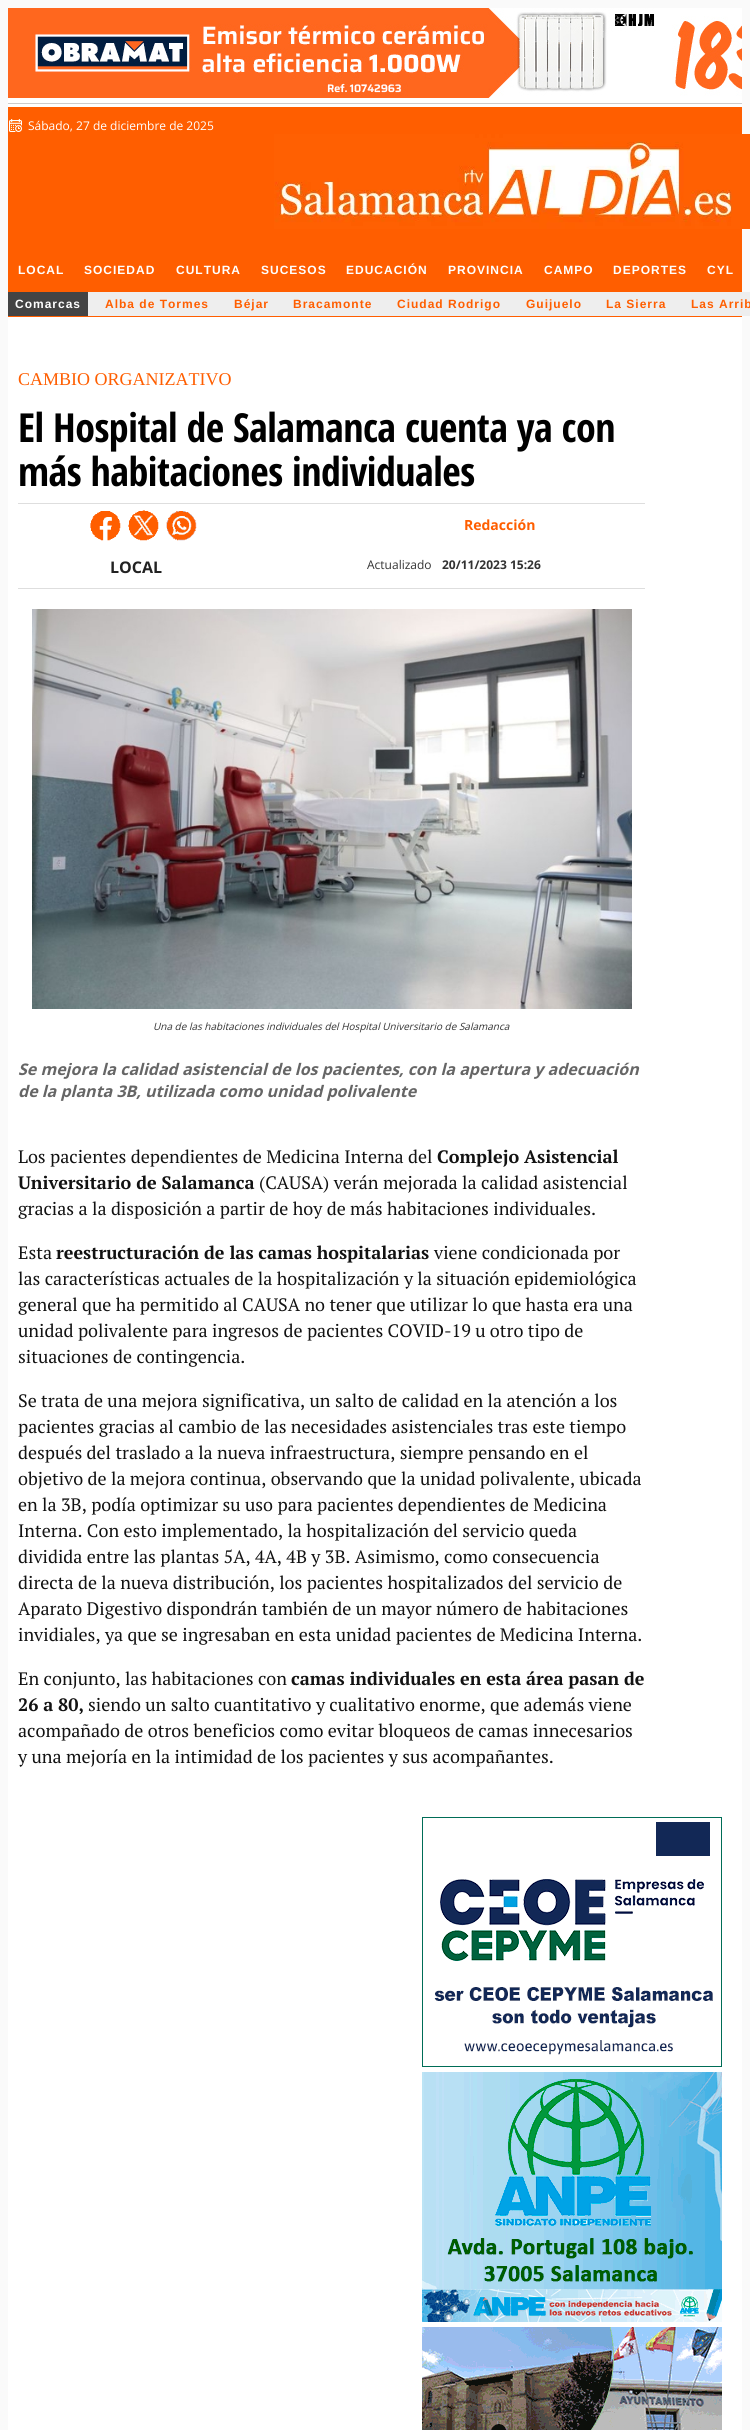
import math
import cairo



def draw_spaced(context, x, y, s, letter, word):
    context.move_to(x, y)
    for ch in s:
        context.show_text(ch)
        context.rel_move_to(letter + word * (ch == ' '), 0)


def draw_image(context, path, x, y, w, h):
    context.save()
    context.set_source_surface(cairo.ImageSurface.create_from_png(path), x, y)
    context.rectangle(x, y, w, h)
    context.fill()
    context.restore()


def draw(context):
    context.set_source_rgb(250 / 255, 250 / 255, 250 / 255)
    context.paint()
    context.set_source_rgb(1, 1, 1)
    context.rectangle(8, 98, 734, 2332)
    context.fill()
    context.set_source_rgb(204 / 255, 204 / 255, 204 / 255)
    context.rectangle(8, 103, 734, 1)
    context.fill()
    draw_image(context, "images/1.png", 8, 8, 734, 90)
    context.set_source_rgb(1, 94 / 255, 0)
    context.rectangle(8, 107, 734, 210)
    context.fill()
    draw_image(context, "images/2.png", 9, 119, 13, 13)
    draw_image(context, "images/3.png", 274, 134, 476, 95)
    context.set_source_rgb(238 / 255, 238 / 255, 238 / 255)
    context.rectangle(88, 292, 662, 24)
    context.fill()
    context.set_source_rgb(68 / 255, 68 / 255, 68 / 255)
    context.rectangle(8, 292, 80, 24)
    context.fill()
    context.set_source_rgb(222 / 255, 222 / 255, 222 / 255)
    context.rectangle(18, 503, 627, 1)
    context.fill()
    context.rectangle(18, 588, 627, 1)
    context.fill()
    draw_image(context, "images/4.png", 90, 511, 31, 30)
    draw_image(context, "images/5.png", 128, 510, 31, 31)
    draw_image(context, "images/6.png", 166, 511, 31, 30)
    draw_image(context, "images/7.png", 32, 609, 600, 400)
    draw_image(context, "images/8.png", 422, 1817, 300, 250)
    draw_image(context, "images/9.png", 422, 2072, 300, 250)
    draw_image(context, "images/10.png", 422, 2327, 300, 103)
    context.select_font_face("Open Sans")
    context.set_font_size(12)
    context.set_source_rgb(1, 1, 1)
    context.move_to(28, 130)
    context.show_text("Sábado, 27 de diciembre de 2025")
    context.select_font_face("Liberation Sans", cairo.FontSlant.NORMAL, cairo.FontWeight.BOLD)
    draw_spaced(context, 18, 274, "LOCAL", 1, 0)
    draw_spaced(context, 84, 274, "SOCIEDAD", 1, 0)
    draw_spaced(context, 176, 274, "CULTURA", 1, 0)
    draw_spaced(context, 261, 274, "SUCESOS", 1, 0)
    draw_spaced(context, 346, 274, "EDUCACIÓN", 1, 0)
    draw_spaced(context, 448, 274, "PROVINCIA", 1, 0)
    draw_spaced(context, 544, 274, "CAMPO", 1, 0)
    draw_spaced(context, 613, 274, "DEPORTES", 1, 0)
    draw_spaced(context, 707, 274, "CYL", 1, 0)
    draw_spaced(context, 15, 308, "Comarcas", 1, 0)
    context.set_source_rgb(1, 94 / 255, 0)
    draw_spaced(context, 105, 308, "Alba de Tormes", 1, 0)
    draw_spaced(context, 234, 308, "Béjar", 1, 0)
    draw_spaced(context, 293, 308, "Bracamonte", 1, 0)
    draw_spaced(context, 397, 308, "Ciudad Rodrigo", 1, 0)
    draw_spaced(context, 526, 308, "Guijuelo", 1, 0)
    draw_spaced(context, 606, 308, "La Sierra", 1, 0)
    draw_spaced(context, 691, 308, "Las Arrib", 1, 0)
    context.select_font_face("Liberation Serif")
    context.set_font_size(18)
    context.move_to(18, 385)
    context.show_text("CAMBIO ORGANIZATIVO")
    context.select_font_face("Open Sans Condensed", cairo.FontSlant.NORMAL, cairo.FontWeight.BOLD)
    context.set_font_size(40)
    context.set_source_rgb(0, 0, 0)
    draw_spaced(context, 18, 442, "El Hospital de Salamanca cuenta ya con", -0.5, 0)
    draw_spaced(context, 18, 486, "más habitaciones individuales", -0.5, 0)
    context.select_font_face("Open Sans", cairo.FontSlant.NORMAL, cairo.FontWeight.BOLD)
    context.set_font_size(14)
    context.set_source_rgb(1, 94 / 255, 0)
    context.move_to(464, 530)
    context.show_text("Redacción")
    context.set_font_size(16)
    context.set_source_rgb(34 / 255, 34 / 255, 34 / 255)
    context.move_to(110, 573)
    context.show_text("LOCAL")
    context.select_font_face("Open Sans")
    context.set_font_size(12)
    context.set_source_rgb(51 / 255, 51 / 255, 51 / 255)
    context.move_to(367, 569)
    context.show_text("Actualizado")
    context.select_font_face("Open Sans", cairo.FontSlant.NORMAL, cairo.FontWeight.BOLD)
    context.move_to(442, 569)
    context.show_text("20/11/2023 15:26")
    context.select_font_face("Open Sans", cairo.FontSlant.ITALIC)
    context.set_font_size(10)
    context.move_to(153, 1030)
    context.show_text("Una de las habitaciones individuales del Hospital Universitario de Salamanca")
    context.select_font_face("Open Sans", cairo.FontSlant.ITALIC, cairo.FontWeight.BOLD)
    context.set_font_size(16)
    context.set_source_rgb(102 / 255, 102 / 255, 102 / 255)
    context.move_to(18, 1075)
    context.show_text("Se mejora la calidad asistencial de los pacientes, con la apertura y adecuación")
    context.move_to(18, 1097)
    context.show_text("de la planta 3B, utilizada como unidad polivalente")
    context.select_font_face("PT Serif")
    context.set_font_size(18)
    context.set_source_rgb(18 / 255, 18 / 255, 18 / 255)
    context.move_to(18, 1163)
    context.show_text("Los pacientes dependientes de Medicina Interna del")
    context.select_font_face("PT Serif", cairo.FontSlant.NORMAL, cairo.FontWeight.BOLD)
    context.move_to(437, 1163)
    context.show_text("Complejo Asistencial")
    context.move_to(18, 1189)
    context.show_text("Universitario de Salamanca")
    context.select_font_face("PT Serif")
    context.move_to(259, 1189)
    context.show_text("(CAUSA) verán mejorada la calidad asistencial")
    context.move_to(18, 1215)
    context.show_text("gracias a la disposición a partir de hoy de más habitaciones individuales.")
    context.move_to(18, 1259)
    context.show_text("Esta")
    context.select_font_face("PT Serif", cairo.FontSlant.NORMAL, cairo.FontWeight.BOLD)
    context.move_to(56, 1259)
    context.show_text("reestructuración de las camas hospitalarias")
    context.select_font_face("PT Serif")
    context.move_to(434, 1259)
    context.show_text("viene condicionada por")
    context.move_to(18, 1285)
    context.show_text("las características actuales de la hospitalización y la situación epidemiológica")
    context.move_to(18, 1311)
    context.show_text("general que ha permitido al CAUSA no tener que utilizar lo que hasta era una")
    context.move_to(18, 1337)
    context.show_text("unidad polivalente para ingresos de pacientes COVID-19 u otro tipo de")
    context.move_to(18, 1363)
    context.show_text("situaciones de contingencia.")
    context.move_to(18, 1407)
    context.show_text("Se trata de una mejora significativa, un salto de calidad en la atención a los")
    context.move_to(18, 1433)
    context.show_text("pacientes gracias al cambio de las necesidades asistenciales tras este tiempo")
    context.move_to(18, 1459)
    context.show_text("después del traslado a la nueva infraestructura, siempre pensando en el")
    context.move_to(18, 1485)
    context.show_text("objetivo de la mejora continua, observando que la unidad polivalente, ubicada")
    context.move_to(18, 1511)
    context.show_text("en la 3B, podía optimizar su uso para pacientes dependientes de Medicina")
    context.move_to(18, 1537)
    context.show_text("Interna. Con esto implementado, la hospitalización del servicio queda")
    context.move_to(18, 1563)
    context.show_text("dividida entre las plantas 5A, 4A, 4B y 3B. Asimismo, como consecuencia")
    context.move_to(18, 1589)
    context.show_text("directa de la nueva distribución, los pacientes hospitalizados del servicio de")
    context.move_to(18, 1615)
    context.show_text("Aparato Digestivo dispondrán también de un mayor número de habitaciones")
    context.move_to(18, 1641)
    context.show_text("invidiales, ya que se ingresaban en esta unidad pacientes de Medicina Interna.")
    context.move_to(18, 1685)
    context.show_text("En conjunto, las habitaciones con")
    context.select_font_face("PT Serif", cairo.FontSlant.NORMAL, cairo.FontWeight.BOLD)
    context.move_to(291, 1685)
    context.show_text("camas individuales en esta área pasan de")
    context.move_to(18, 1711)
    context.show_text("26 a 80,")
    context.select_font_face("PT Serif")
    context.move_to(88, 1711)
    context.show_text("siendo un salto cuantitativo y cualitativo enorme, que además viene")
    context.move_to(18, 1737)
    context.show_text("acompañado de otros beneficios como evitar bloqueos de camas innecesarios")
    context.move_to(18, 1763)
    context.show_text("y una mejoría en la intimidad de los pacientes y sus acompañantes.")


surface = cairo.ImageSurface(cairo.Format.RGB24, 750, 2430)
context = cairo.Context(surface)
options = cairo.FontOptions()
options.set_hint_metrics(cairo.HintMetrics.OFF)
options.set_hint_style(cairo.HintStyle.NONE)
context.set_font_options(options)
context.set_miter_limit(4)
draw(context)
surface.write_to_png("out.png")
